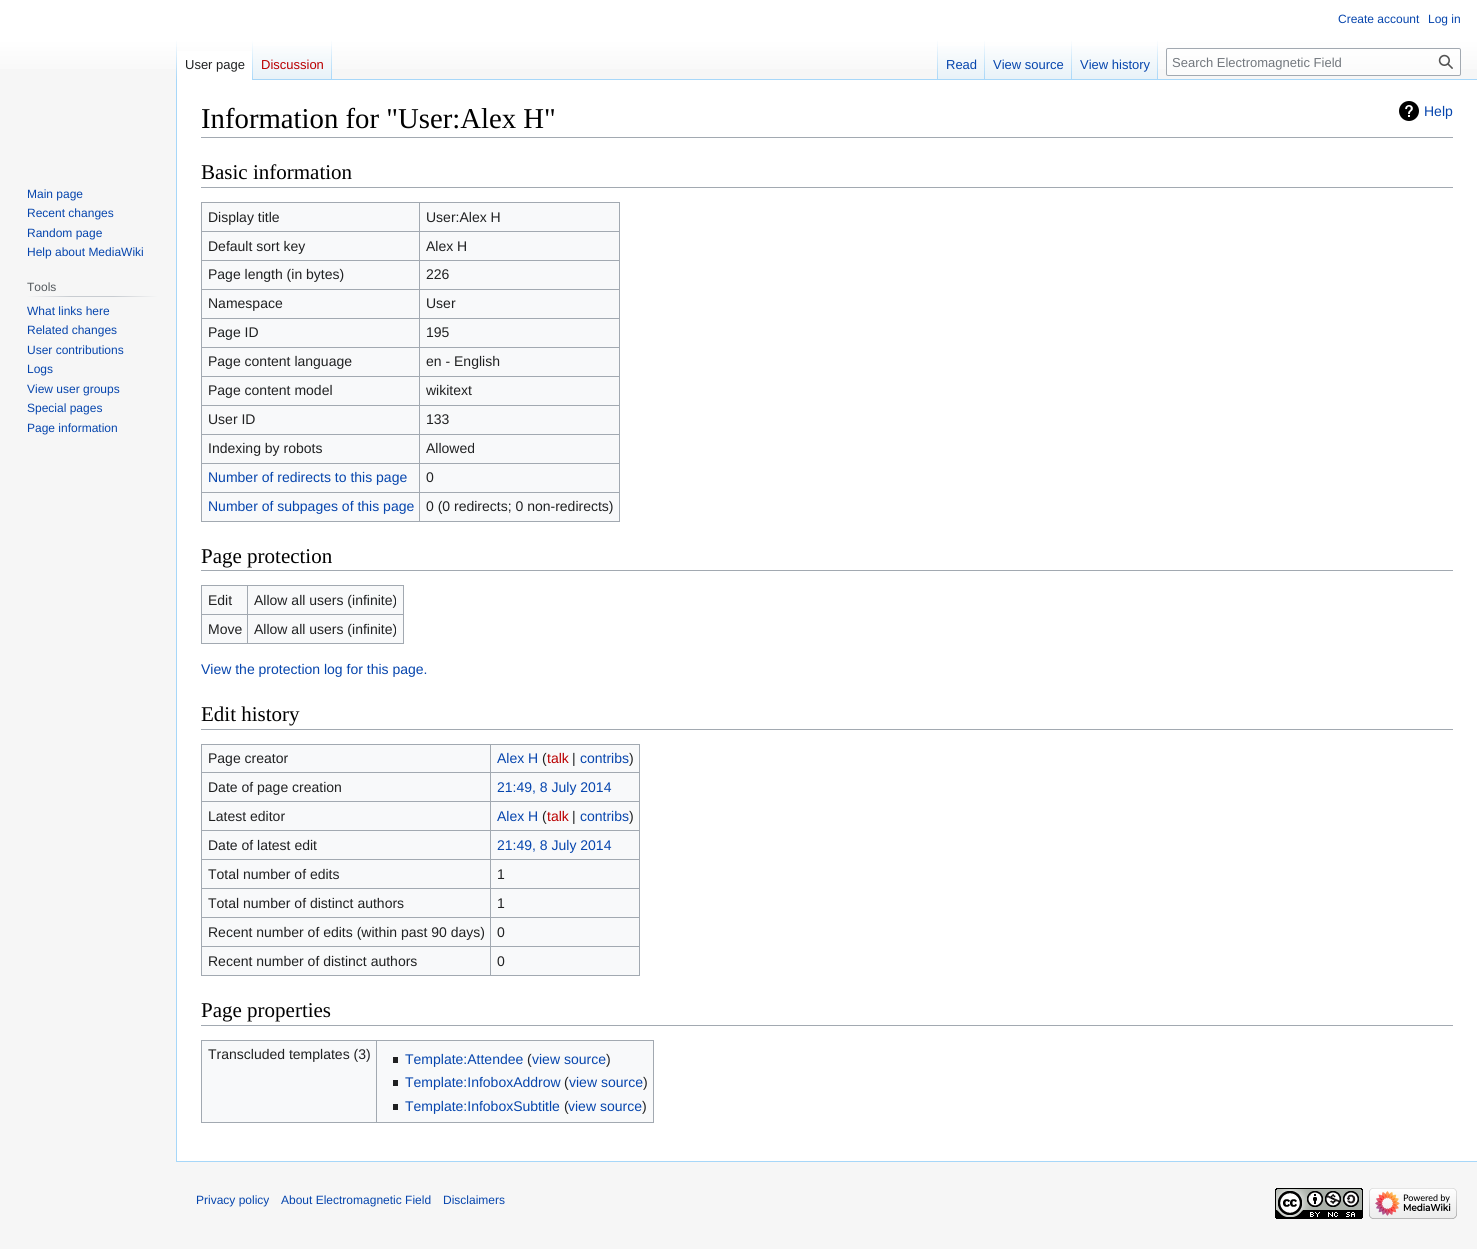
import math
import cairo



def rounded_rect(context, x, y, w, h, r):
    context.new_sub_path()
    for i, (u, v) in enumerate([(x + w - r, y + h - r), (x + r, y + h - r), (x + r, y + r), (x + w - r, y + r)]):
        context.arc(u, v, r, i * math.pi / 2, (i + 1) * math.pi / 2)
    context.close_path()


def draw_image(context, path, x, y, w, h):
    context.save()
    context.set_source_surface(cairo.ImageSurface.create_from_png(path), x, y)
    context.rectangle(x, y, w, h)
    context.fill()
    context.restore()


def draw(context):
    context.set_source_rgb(246 / 255, 246 / 255, 246 / 255)
    context.paint()
    gradient = cairo.LinearGradient(739, 0, 739, 80)
    gradient.add_color_stop_rgba(0.5, 1, 1, 1, 1)
    gradient.add_color_stop_rgba(1, 246 / 255, 246 / 255, 246 / 255, 1)
    context.set_source(gradient)
    context.rectangle(0, 0, 1477, 69)
    context.fill()
    context.set_source_rgb(167 / 255, 215 / 255, 249 / 255)
    context.rectangle(176, 1161, 1301, 1)
    context.fill()
    context.rectangle(176, 79, 1, 1083)
    context.fill()
    gradient = cairo.LinearGradient(177, 40, 177, 80)
    gradient.add_color_stop_rgba(0, 167 / 255, 215 / 255, 249 / 255, 0)
    gradient.add_color_stop_rgba(1, 167 / 255, 215 / 255, 249 / 255, 1)
    context.set_source(gradient)
    context.rectangle(176, 40, 1, 40)
    context.fill()
    context.set_source_rgb(1, 1, 1)
    context.rectangle(177, 51, 75, 29)
    context.fill()
    gradient = cairo.LinearGradient(253, 40, 253, 80)
    gradient.add_color_stop_rgba(0, 1, 1, 1, 1)
    gradient.add_color_stop_rgba(1, 167 / 255, 215 / 255, 249 / 255, 1)
    context.set_source(gradient)
    context.rectangle(252, 40, 1, 40)
    context.fill()
    gradient = cairo.LinearGradient(293, 80, 293, 40)
    gradient.add_color_stop_rgba(0, 119 / 255, 193 / 255, 246 / 255, 1)
    gradient.add_color_stop_rgba(0.03, 232 / 255, 242 / 255, 248 / 255, 1)
    gradient.add_color_stop_rgba(1, 1, 1, 1, 1)
    context.set_source(gradient)
    context.rectangle(253, 46, 79, 34)
    context.fill()
    gradient = cairo.LinearGradient(332, 40, 332, 80)
    gradient.add_color_stop_rgba(0, 167 / 255, 215 / 255, 249 / 255, 0)
    gradient.add_color_stop_rgba(1, 167 / 255, 215 / 255, 249 / 255, 1)
    context.set_source(gradient)
    context.rectangle(331, 40, 1, 40)
    context.fill()
    context.set_source_rgb(167 / 255, 215 / 255, 249 / 255)
    context.rectangle(332, 79, 1145, 1)
    context.fill()
    gradient = cairo.LinearGradient(938, 40, 938, 80)
    gradient.add_color_stop_rgba(0, 167 / 255, 215 / 255, 249 / 255, 0)
    gradient.add_color_stop_rgba(1, 167 / 255, 215 / 255, 249 / 255, 1)
    context.set_source(gradient)
    context.rectangle(937, 40, 1, 40)
    context.fill()
    gradient = cairo.LinearGradient(962, 80, 962, 40)
    gradient.add_color_stop_rgba(0, 119 / 255, 193 / 255, 246 / 255, 1)
    gradient.add_color_stop_rgba(0.03, 232 / 255, 242 / 255, 248 / 255, 1)
    gradient.add_color_stop_rgba(1, 1, 1, 1, 1)
    context.set_source(gradient)
    context.rectangle(938, 46, 47, 33)
    context.fill()
    gradient = cairo.LinearGradient(985, 40, 985, 80)
    gradient.add_color_stop_rgba(0, 167 / 255, 215 / 255, 249 / 255, 0)
    gradient.add_color_stop_rgba(1, 167 / 255, 215 / 255, 249 / 255, 1)
    context.set_source(gradient)
    context.rectangle(984, 40, 1, 40)
    context.fill()
    gradient = cairo.LinearGradient(1029, 80, 1029, 40)
    gradient.add_color_stop_rgba(0, 119 / 255, 193 / 255, 246 / 255, 1)
    gradient.add_color_stop_rgba(0.03, 232 / 255, 242 / 255, 248 / 255, 1)
    gradient.add_color_stop_rgba(1, 1, 1, 1, 1)
    context.set_source(gradient)
    context.rectangle(985, 46, 87, 33)
    context.fill()
    gradient = cairo.LinearGradient(1072, 40, 1072, 80)
    gradient.add_color_stop_rgba(0, 167 / 255, 215 / 255, 249 / 255, 0)
    gradient.add_color_stop_rgba(1, 167 / 255, 215 / 255, 249 / 255, 1)
    context.set_source(gradient)
    context.rectangle(1071, 40, 1, 40)
    context.fill()
    gradient = cairo.LinearGradient(1115, 80, 1115, 40)
    gradient.add_color_stop_rgba(0, 119 / 255, 193 / 255, 246 / 255, 1)
    gradient.add_color_stop_rgba(0.03, 232 / 255, 242 / 255, 248 / 255, 1)
    gradient.add_color_stop_rgba(1, 1, 1, 1, 1)
    context.set_source(gradient)
    context.rectangle(1072, 46, 86, 33)
    context.fill()
    gradient = cairo.LinearGradient(1158, 40, 1158, 80)
    gradient.add_color_stop_rgba(0, 167 / 255, 215 / 255, 249 / 255, 0)
    gradient.add_color_stop_rgba(1, 167 / 255, 215 / 255, 249 / 255, 1)
    context.set_source(gradient)
    context.rectangle(1157, 40, 1, 40)
    context.fill()
    context.set_source_rgba(1, 1, 1, 0.5)
    rounded_rect(context, 1166.5, 48.5, 294, 27, 1.5)
    context.fill_preserve()
    context.set_source_rgb(162 / 255, 169 / 255, 177 / 255)
    context.set_line_width(1)
    context.stroke()
    draw_image(context, "images/1.png", 1438, 54, 15, 15)
    gradient = cairo.LinearGradient(27, 297, 158, 297)
    gradient.add_color_stop_rgba(0, 246 / 255, 246 / 255, 246 / 255, 1)
    gradient.add_color_stop_rgba(0.33, 200 / 255, 204 / 255, 209 / 255, 1)
    gradient.add_color_stop_rgba(0.66, 200 / 255, 204 / 255, 209 / 255, 1)
    gradient.add_color_stop_rgba(1, 246 / 255, 246 / 255, 246 / 255, 1)
    context.set_source(gradient)
    context.rectangle(27, 296, 131, 1)
    context.fill()
    context.set_source_rgb(1, 1, 1)
    context.rectangle(177, 80, 1300, 1081)
    context.fill()
    context.set_source_rgb(162 / 255, 169 / 255, 177 / 255)
    context.rectangle(201, 137, 1252, 1)
    context.fill()
    draw_image(context, "images/2.png", 1399, 101, 20, 20)
    context.rectangle(201, 187, 1252, 1)
    context.fill()
    context.set_source_rgb(248 / 255, 249 / 255, 250 / 255)
    context.rectangle(202, 203, 417, 318)
    context.fill()
    context.set_source_rgb(162 / 255, 169 / 255, 177 / 255)
    context.rectangle(201, 202, 419, 1)
    context.fill()
    context.rectangle(619, 202, 1, 320)
    context.fill()
    context.rectangle(201, 521, 419, 1)
    context.fill()
    context.rectangle(201, 202, 1, 320)
    context.fill()
    context.rectangle(419, 231, 201, 1)
    context.fill()
    context.rectangle(419, 260, 201, 1)
    context.fill()
    context.rectangle(419, 289, 201, 1)
    context.fill()
    context.rectangle(419, 318, 201, 1)
    context.fill()
    context.rectangle(419, 347, 201, 1)
    context.fill()
    context.rectangle(419, 376, 201, 1)
    context.fill()
    context.rectangle(419, 405, 201, 1)
    context.fill()
    context.rectangle(419, 434, 201, 1)
    context.fill()
    context.rectangle(419, 463, 201, 1)
    context.fill()
    context.rectangle(419, 492, 201, 1)
    context.fill()
    context.rectangle(419, 492, 1, 30)
    context.fill()
    context.rectangle(201, 492, 219, 1)
    context.fill()
    context.rectangle(419, 463, 1, 30)
    context.fill()
    context.rectangle(201, 463, 219, 1)
    context.fill()
    context.rectangle(419, 434, 1, 30)
    context.fill()
    context.rectangle(201, 434, 219, 1)
    context.fill()
    context.rectangle(419, 405, 1, 30)
    context.fill()
    context.rectangle(201, 405, 219, 1)
    context.fill()
    context.rectangle(419, 376, 1, 30)
    context.fill()
    context.rectangle(201, 376, 219, 1)
    context.fill()
    context.rectangle(419, 347, 1, 30)
    context.fill()
    context.rectangle(201, 347, 219, 1)
    context.fill()
    context.rectangle(419, 318, 1, 30)
    context.fill()
    context.rectangle(201, 318, 219, 1)
    context.fill()
    context.rectangle(419, 289, 1, 30)
    context.fill()
    context.rectangle(201, 289, 219, 1)
    context.fill()
    context.rectangle(419, 260, 1, 30)
    context.fill()
    context.rectangle(201, 260, 219, 1)
    context.fill()
    context.rectangle(419, 231, 1, 30)
    context.fill()
    context.rectangle(201, 231, 219, 1)
    context.fill()
    context.rectangle(419, 202, 1, 30)
    context.fill()
    context.rectangle(201, 570, 1252, 1)
    context.fill()
    context.set_source_rgb(248 / 255, 249 / 255, 250 / 255)
    context.rectangle(202, 586, 201, 57)
    context.fill()
    context.set_source_rgb(162 / 255, 169 / 255, 177 / 255)
    context.rectangle(201, 585, 203, 1)
    context.fill()
    context.rectangle(403, 585, 1, 59)
    context.fill()
    context.rectangle(201, 643, 203, 1)
    context.fill()
    context.rectangle(201, 585, 1, 59)
    context.fill()
    context.rectangle(247, 614, 157, 1)
    context.fill()
    context.rectangle(247, 614, 1, 30)
    context.fill()
    context.rectangle(201, 614, 47, 1)
    context.fill()
    context.rectangle(247, 585, 1, 30)
    context.fill()
    context.rectangle(201, 729, 1252, 1)
    context.fill()
    context.set_source_rgb(248 / 255, 249 / 255, 250 / 255)
    context.rectangle(202, 745, 437, 230)
    context.fill()
    context.set_source_rgb(162 / 255, 169 / 255, 177 / 255)
    context.rectangle(201, 744, 439, 1)
    context.fill()
    context.rectangle(639, 744, 1, 232)
    context.fill()
    context.rectangle(201, 975, 439, 1)
    context.fill()
    context.rectangle(201, 744, 1, 232)
    context.fill()
    context.rectangle(490, 772, 150, 1)
    context.fill()
    context.rectangle(490, 801, 150, 1)
    context.fill()
    context.rectangle(490, 830, 150, 1)
    context.fill()
    context.rectangle(490, 859, 150, 1)
    context.fill()
    context.rectangle(490, 888, 150, 1)
    context.fill()
    context.rectangle(490, 917, 150, 1)
    context.fill()
    context.rectangle(490, 946, 150, 1)
    context.fill()
    context.rectangle(490, 946, 1, 30)
    context.fill()
    context.rectangle(201, 946, 290, 1)
    context.fill()
    context.rectangle(490, 917, 1, 30)
    context.fill()
    context.rectangle(201, 917, 290, 1)
    context.fill()
    context.rectangle(490, 888, 1, 30)
    context.fill()
    context.rectangle(201, 888, 290, 1)
    context.fill()
    context.rectangle(490, 859, 1, 30)
    context.fill()
    context.rectangle(201, 859, 290, 1)
    context.fill()
    context.rectangle(490, 830, 1, 30)
    context.fill()
    context.rectangle(201, 830, 290, 1)
    context.fill()
    context.rectangle(490, 801, 1, 30)
    context.fill()
    context.rectangle(201, 801, 290, 1)
    context.fill()
    context.rectangle(490, 772, 1, 30)
    context.fill()
    context.rectangle(201, 772, 290, 1)
    context.fill()
    context.rectangle(490, 744, 1, 29)
    context.fill()
    context.rectangle(201, 1025, 1252, 1)
    context.fill()
    context.set_source_rgb(248 / 255, 249 / 255, 250 / 255)
    context.rectangle(202, 1041, 451, 81)
    context.fill()
    context.set_source_rgb(162 / 255, 169 / 255, 177 / 255)
    context.rectangle(201, 1040, 453, 1)
    context.fill()
    context.rectangle(653, 1040, 1, 83)
    context.fill()
    context.rectangle(201, 1122, 453, 1)
    context.fill()
    context.rectangle(201, 1040, 1, 83)
    context.fill()
    context.rectangle(376, 1040, 1, 83)
    context.fill()
    context.set_source_rgb(32 / 255, 33 / 255, 34 / 255)
    context.rectangle(393, 1057, 5, 6)
    context.fill()
    context.rectangle(393, 1080, 5, 6)
    context.fill()
    context.rectangle(393, 1104, 5, 6)
    context.fill()
    draw_image(context, "images/3.png", 1275, 1188, 88, 31)
    draw_image(context, "images/4.png", 1369, 1188, 88, 31)
    context.select_font_face("Liberation Sans")
    context.set_font_size(12)
    context.set_source_rgb(6 / 255, 69 / 255, 173 / 255)
    context.move_to(1338, 23)
    context.show_text("Create account")
    context.move_to(1428, 23)
    context.show_text("Log in")
    context.set_font_size(13)
    context.set_source_rgb(32 / 255, 33 / 255, 34 / 255)
    context.move_to(185, 69)
    context.show_text("User page")
    context.set_source_rgb(186 / 255, 0, 0)
    context.move_to(261, 69)
    context.show_text("Discussion")
    context.set_source_rgb(6 / 255, 69 / 255, 173 / 255)
    context.move_to(946, 69)
    context.show_text("Read")
    context.move_to(993, 69)
    context.show_text("View source")
    context.move_to(1080, 69)
    context.show_text("View history")
    context.set_source_rgb(114 / 255, 119 / 255, 125 / 255)
    context.move_to(1172, 67)
    context.show_text("Search Electromagnetic Field")
    context.set_font_size(12)
    context.set_source_rgb(6 / 255, 69 / 255, 173 / 255)
    context.move_to(27, 198)
    context.show_text("Main page")
    context.move_to(27, 217)
    context.show_text("Recent changes")
    context.move_to(27, 237)
    context.show_text("Random page")
    context.move_to(27, 256)
    context.show_text("Help about MediaWiki")
    context.set_source_rgb(84 / 255, 89 / 255, 93 / 255)
    context.move_to(27, 291)
    context.show_text("Tools")
    context.set_source_rgb(6 / 255, 69 / 255, 173 / 255)
    context.move_to(27, 315)
    context.show_text("What links here")
    context.move_to(27, 334)
    context.show_text("Related changes")
    context.move_to(27, 354)
    context.show_text("User contributions")
    context.move_to(27, 373)
    context.show_text("Logs")
    context.move_to(27, 393)
    context.show_text("View user groups")
    context.move_to(27, 412)
    context.show_text("Special pages")
    context.move_to(27, 432)
    context.show_text("Page information")
    context.select_font_face("Liberation Serif")
    context.set_font_size(28.75)
    context.set_source_rgb(0, 0, 0)
    context.move_to(201, 128)
    context.show_text("Information for \"User:Alex H\"")
    context.select_font_face("Liberation Sans")
    context.set_font_size(14)
    context.set_source_rgb(6 / 255, 69 / 255, 173 / 255)
    context.move_to(1424, 116)
    context.show_text("Help")
    context.select_font_face("Liberation Serif")
    context.set_font_size(21)
    context.set_source_rgb(0, 0, 0)
    context.move_to(201, 179)
    context.show_text("Basic information")
    context.select_font_face("Liberation Sans")
    context.set_font_size(14)
    context.set_source_rgb(32 / 255, 33 / 255, 34 / 255)
    context.move_to(208, 222)
    context.show_text("Display title")
    context.move_to(426, 222)
    context.show_text("User:Alex H")
    context.move_to(208, 251)
    context.show_text("Default sort key")
    context.move_to(426, 251)
    context.show_text("Alex H")
    context.move_to(208, 279)
    context.show_text("Page length (in bytes)")
    context.move_to(426, 279)
    context.show_text("226")
    context.move_to(208, 308)
    context.show_text("Namespace")
    context.move_to(426, 308)
    context.show_text("User")
    context.move_to(208, 337)
    context.show_text("Page ID")
    context.move_to(426, 337)
    context.show_text("195")
    context.move_to(208, 366)
    context.show_text("Page content language")
    context.move_to(426, 366)
    context.show_text("en - English")
    context.move_to(208, 395)
    context.show_text("Page content model")
    context.move_to(426, 395)
    context.show_text("wikitext")
    context.move_to(208, 424)
    context.show_text("User ID")
    context.move_to(426, 424)
    context.show_text("133")
    context.move_to(208, 453)
    context.show_text("Indexing by robots")
    context.move_to(426, 453)
    context.show_text("Allowed")
    context.set_source_rgb(6 / 255, 69 / 255, 173 / 255)
    context.move_to(208, 482)
    context.show_text("Number of redirects to this page")
    context.set_source_rgb(32 / 255, 33 / 255, 34 / 255)
    context.move_to(426, 482)
    context.show_text("0")
    context.set_source_rgb(6 / 255, 69 / 255, 173 / 255)
    context.move_to(208, 511)
    context.show_text("Number of subpages of this page")
    context.set_source_rgb(32 / 255, 33 / 255, 34 / 255)
    context.move_to(426, 511)
    context.show_text("0 (0 redirects; 0 non-redirects)")
    context.select_font_face("Liberation Serif")
    context.set_font_size(21)
    context.set_source_rgb(0, 0, 0)
    context.move_to(201, 563)
    context.show_text("Page protection")
    context.select_font_face("Liberation Sans")
    context.set_font_size(14)
    context.set_source_rgb(32 / 255, 33 / 255, 34 / 255)
    context.move_to(208, 605)
    context.show_text("Edit")
    context.move_to(254, 605)
    context.show_text("Allow all users (infinite)")
    context.move_to(208, 634)
    context.show_text("Move")
    context.move_to(254, 634)
    context.show_text("Allow all users (infinite)")
    context.set_source_rgb(6 / 255, 69 / 255, 173 / 255)
    context.move_to(201, 674)
    context.show_text("View the protection log for this page.")
    context.select_font_face("Liberation Serif")
    context.set_font_size(21)
    context.set_source_rgb(0, 0, 0)
    context.move_to(201, 721)
    context.show_text("Edit history")
    context.select_font_face("Liberation Sans")
    context.set_font_size(14)
    context.set_source_rgb(32 / 255, 33 / 255, 34 / 255)
    context.move_to(208, 763)
    context.show_text("Page creator")
    context.set_source_rgb(6 / 255, 69 / 255, 173 / 255)
    context.move_to(497, 763)
    context.show_text("Alex H")
    context.set_source_rgb(32 / 255, 33 / 255, 34 / 255)
    context.move_to(542, 763)
    context.show_text("(")
    context.set_source_rgb(186 / 255, 0, 0)
    context.move_to(547, 763)
    context.show_text("talk")
    context.set_source_rgb(32 / 255, 33 / 255, 34 / 255)
    context.move_to(572, 763)
    context.show_text("|")
    context.set_source_rgb(6 / 255, 69 / 255, 173 / 255)
    context.move_to(580, 763)
    context.show_text("contribs")
    context.set_source_rgb(32 / 255, 33 / 255, 34 / 255)
    context.move_to(629, 763)
    context.show_text(")")
    context.move_to(208, 792)
    context.show_text("Date of page creation")
    context.set_source_rgb(6 / 255, 69 / 255, 173 / 255)
    context.move_to(497, 792)
    context.show_text("21:49, 8 July 2014")
    context.set_source_rgb(32 / 255, 33 / 255, 34 / 255)
    context.move_to(208, 821)
    context.show_text("Latest editor")
    context.set_source_rgb(6 / 255, 69 / 255, 173 / 255)
    context.move_to(497, 821)
    context.show_text("Alex H")
    context.set_source_rgb(32 / 255, 33 / 255, 34 / 255)
    context.move_to(542, 821)
    context.show_text("(")
    context.set_source_rgb(186 / 255, 0, 0)
    context.move_to(547, 821)
    context.show_text("talk")
    context.set_source_rgb(32 / 255, 33 / 255, 34 / 255)
    context.move_to(572, 821)
    context.show_text("|")
    context.set_source_rgb(6 / 255, 69 / 255, 173 / 255)
    context.move_to(580, 821)
    context.show_text("contribs")
    context.set_source_rgb(32 / 255, 33 / 255, 34 / 255)
    context.move_to(629, 821)
    context.show_text(")")
    context.move_to(208, 850)
    context.show_text("Date of latest edit")
    context.set_source_rgb(6 / 255, 69 / 255, 173 / 255)
    context.move_to(497, 850)
    context.show_text("21:49, 8 July 2014")
    context.set_source_rgb(32 / 255, 33 / 255, 34 / 255)
    context.move_to(208, 879)
    context.show_text("Total number of edits")
    context.move_to(497, 879)
    context.show_text("1")
    context.move_to(208, 908)
    context.show_text("Total number of distinct authors")
    context.move_to(497, 908)
    context.show_text("1")
    context.move_to(208, 937)
    context.show_text("Recent number of edits (within past 90 days)")
    context.move_to(497, 937)
    context.show_text("0")
    context.move_to(208, 966)
    context.show_text("Recent number of distinct authors")
    context.move_to(497, 966)
    context.show_text("0")
    context.select_font_face("Liberation Serif")
    context.set_font_size(21)
    context.set_source_rgb(0, 0, 0)
    context.move_to(201, 1017)
    context.show_text("Page properties")
    context.select_font_face("Liberation Sans")
    context.set_font_size(14)
    context.set_source_rgb(32 / 255, 33 / 255, 34 / 255)
    context.move_to(208, 1059)
    context.show_text("Transcluded templates (3)")
    context.set_source_rgb(6 / 255, 69 / 255, 173 / 255)
    context.move_to(405, 1064)
    context.show_text("Template:Attendee")
    context.set_source_rgb(32 / 255, 33 / 255, 34 / 255)
    context.move_to(527, 1064)
    context.show_text("(")
    context.set_source_rgb(6 / 255, 69 / 255, 173 / 255)
    context.move_to(532, 1064)
    context.show_text("view source")
    context.set_source_rgb(32 / 255, 33 / 255, 34 / 255)
    context.move_to(606, 1064)
    context.show_text(")")
    context.set_source_rgb(6 / 255, 69 / 255, 173 / 255)
    context.move_to(405, 1087)
    context.show_text("Template:InfoboxAddrow")
    context.set_source_rgb(32 / 255, 33 / 255, 34 / 255)
    context.move_to(564, 1087)
    context.show_text("(")
    context.set_source_rgb(6 / 255, 69 / 255, 173 / 255)
    context.move_to(569, 1087)
    context.show_text("view source")
    context.set_source_rgb(32 / 255, 33 / 255, 34 / 255)
    context.move_to(643, 1087)
    context.show_text(")")
    context.set_source_rgb(6 / 255, 69 / 255, 173 / 255)
    context.move_to(405, 1111)
    context.show_text("Template:InfoboxSubtitle")
    context.set_source_rgb(32 / 255, 33 / 255, 34 / 255)
    context.move_to(564, 1111)
    context.show_text("(")
    context.set_source_rgb(6 / 255, 69 / 255, 173 / 255)
    context.move_to(568, 1111)
    context.show_text("view source")
    context.set_source_rgb(32 / 255, 33 / 255, 34 / 255)
    context.move_to(642, 1111)
    context.show_text(")")
    context.set_font_size(12)
    context.set_source_rgb(6 / 255, 69 / 255, 173 / 255)
    context.move_to(196, 1204)
    context.show_text("Privacy policy")
    context.move_to(281, 1204)
    context.show_text("About Electromagnetic Field")
    context.move_to(443, 1204)
    context.show_text("Disclaimers")


surface = cairo.ImageSurface(cairo.Format.RGB24, 1477, 1249)
context = cairo.Context(surface)
options = cairo.FontOptions()
options.set_hint_metrics(cairo.HintMetrics.OFF)
options.set_hint_style(cairo.HintStyle.NONE)
context.set_font_options(options)
context.set_miter_limit(4)
draw(context)
surface.write_to_png("out.png")
